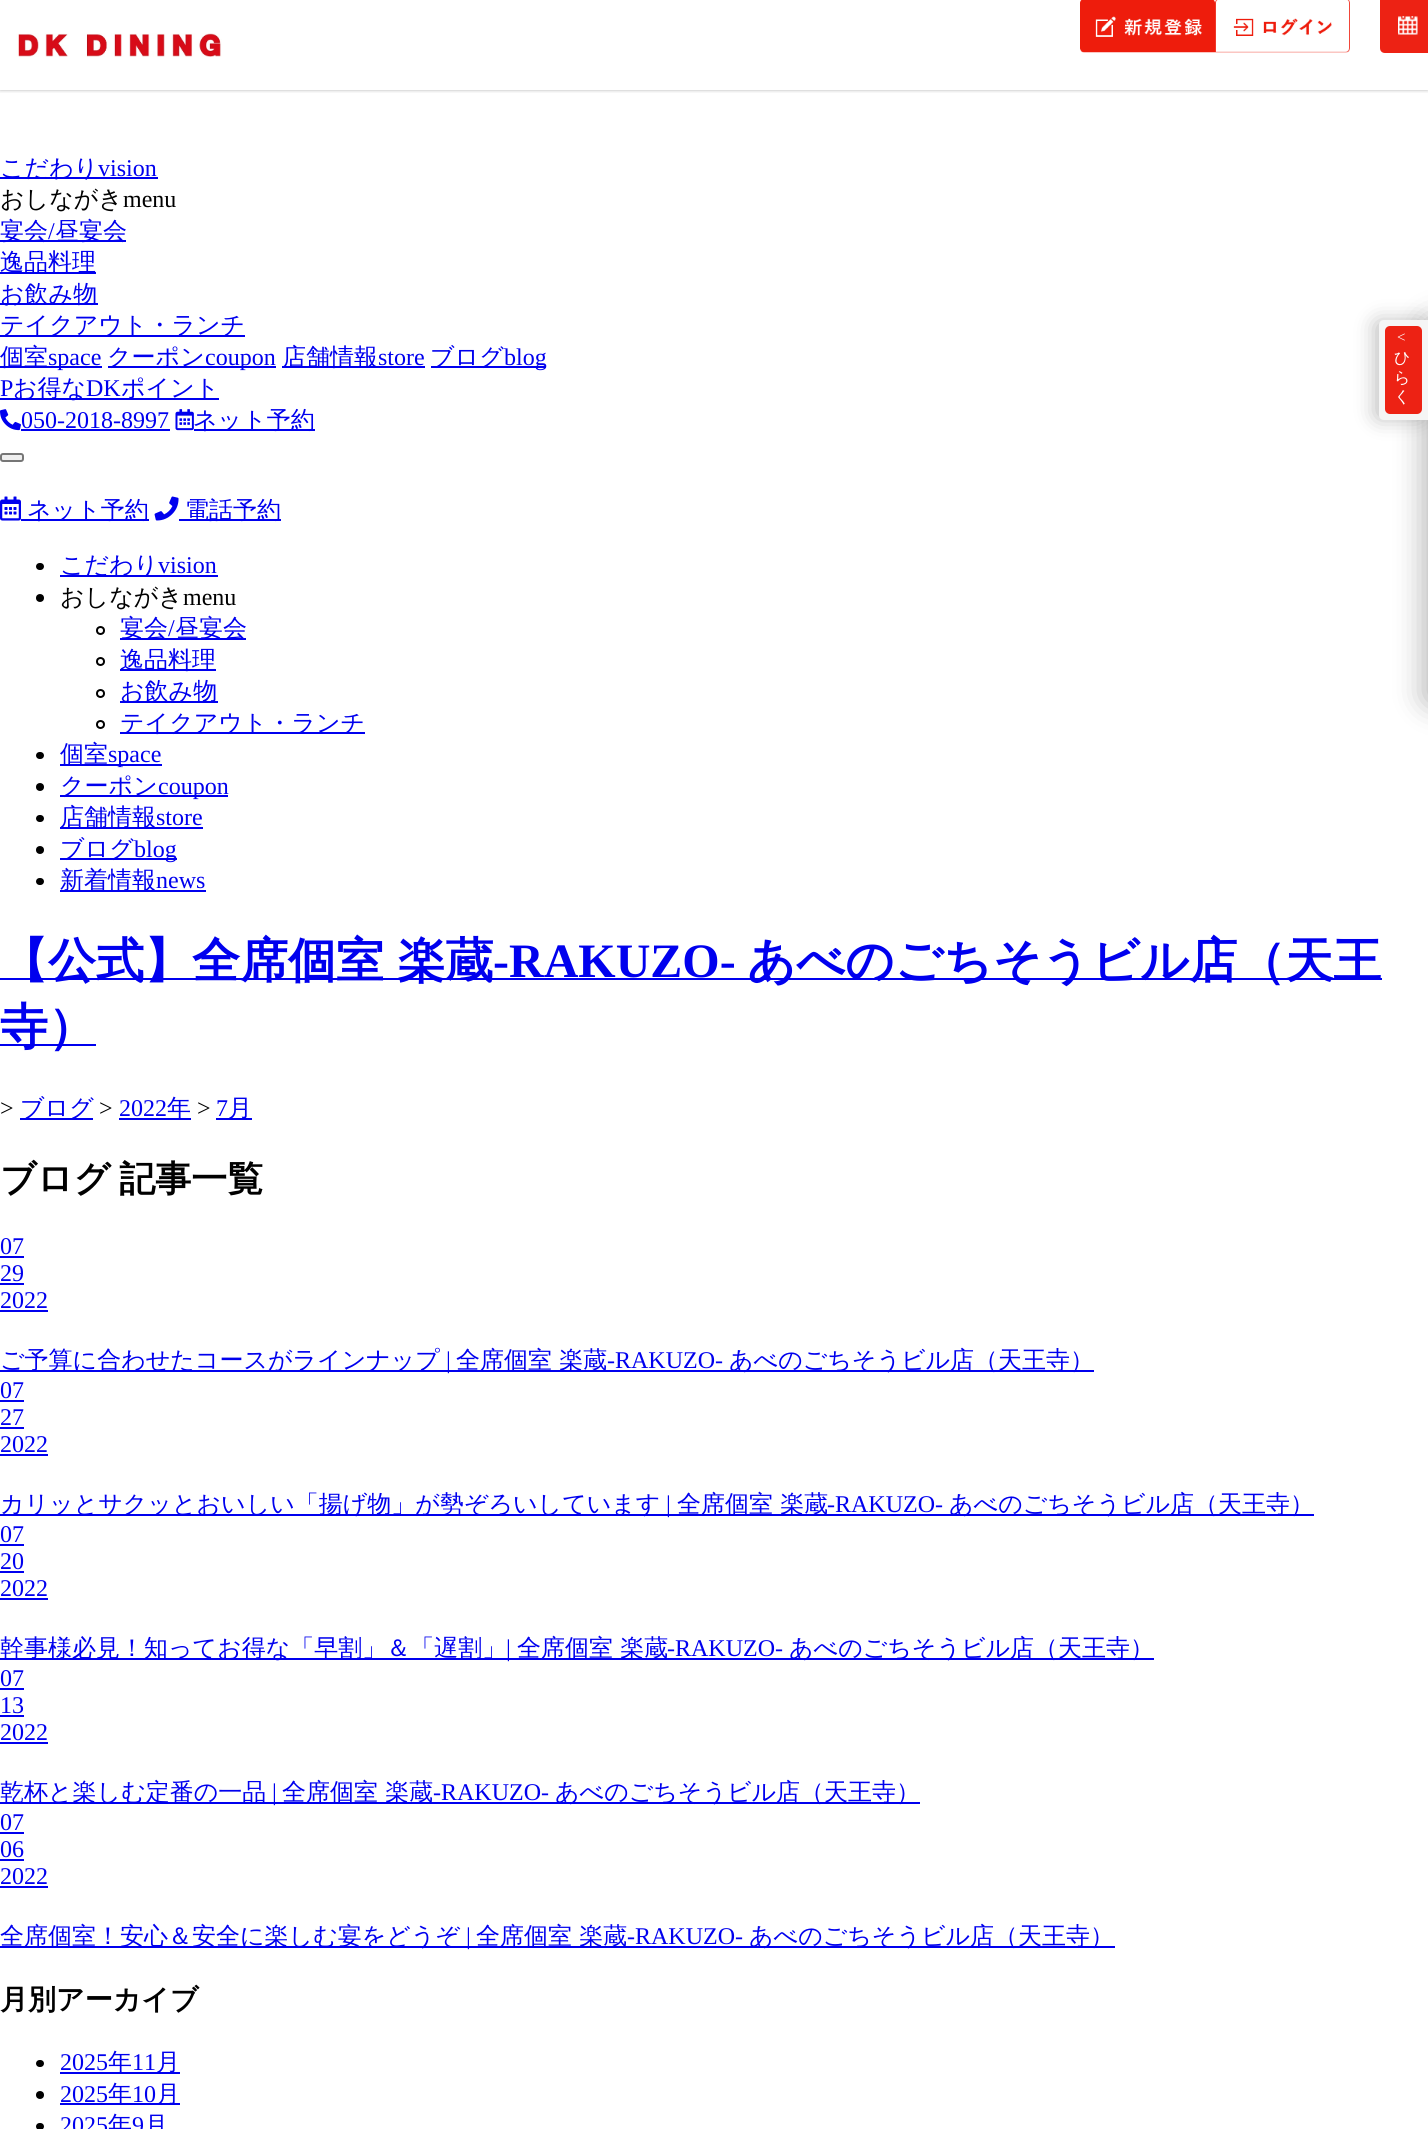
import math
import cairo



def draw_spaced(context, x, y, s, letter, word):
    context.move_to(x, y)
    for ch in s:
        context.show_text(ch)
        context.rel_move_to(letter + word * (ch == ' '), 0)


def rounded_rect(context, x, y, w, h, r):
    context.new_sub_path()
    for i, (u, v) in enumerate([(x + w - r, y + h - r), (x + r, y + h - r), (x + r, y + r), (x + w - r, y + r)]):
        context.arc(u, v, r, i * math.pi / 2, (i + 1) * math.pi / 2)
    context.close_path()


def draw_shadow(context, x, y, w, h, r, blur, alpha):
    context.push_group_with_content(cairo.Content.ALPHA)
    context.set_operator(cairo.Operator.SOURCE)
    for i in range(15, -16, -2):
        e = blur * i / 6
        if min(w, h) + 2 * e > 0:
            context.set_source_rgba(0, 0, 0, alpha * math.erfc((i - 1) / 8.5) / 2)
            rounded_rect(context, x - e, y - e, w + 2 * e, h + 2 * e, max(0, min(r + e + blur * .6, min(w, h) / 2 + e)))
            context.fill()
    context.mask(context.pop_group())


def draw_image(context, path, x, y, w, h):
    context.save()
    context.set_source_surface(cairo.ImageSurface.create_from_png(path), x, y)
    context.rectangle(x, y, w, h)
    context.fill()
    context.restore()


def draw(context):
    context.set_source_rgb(1, 1, 1)
    context.paint()
    context.save()
    context.rectangle(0, 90, 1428, 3)
    context.clip()
    context.set_source_rgb(100 / 255, 100 / 255, 100 / 255)
    draw_shadow(context, 0, 0, 1428, 90, 0, 2, 0.49)
    context.restore()
    draw_image(context, "images/1.png", 16, 33, 206, 24)
    draw_image(context, "images/2.png", 1080, 0, 270, 53)
    context.set_source_rgb(237 / 255, 34 / 255, 20 / 255)
    context.new_path()
    context.move_to(1380, 0)
    context.line_to(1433, 0)
    context.line_to(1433, 48)
    context.curve_to(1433, 51, 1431, 53, 1428, 53)
    context.line_to(1385, 53)
    context.curve_to(1382, 53, 1380, 51, 1380, 48)
    context.close_path()
    context.fill()
    draw_image(context, "images/3.png", 1398, 16, 20, 19)
    context.set_source_rgb(0, 0, 238 / 255)
    context.rectangle(0, 177, 158, 2)
    context.fill()
    context.rectangle(0, 240, 126, 2)
    context.fill()
    context.rectangle(0, 272, 96, 2)
    context.fill()
    context.rectangle(0, 303, 98, 2)
    context.fill()
    context.rectangle(0, 335, 245, 2)
    context.fill()
    context.rectangle(0, 366, 102, 2)
    context.fill()
    context.rectangle(108, 366, 168, 2)
    context.fill()
    context.rectangle(282, 366, 143, 2)
    context.fill()
    context.rectangle(431, 366, 115, 2)
    context.fill()
    context.rectangle(0, 398, 219, 2)
    context.fill()
    draw_image(context, "images/4.png", 0, 409, 21, 22)
    context.rectangle(21, 429, 149, 2)
    context.fill()
    draw_image(context, "images/5.png", 175, 409, 19, 22)
    context.rectangle(194, 429, 121, 2)
    context.fill()
    context.set_source_rgb(239 / 255, 239 / 255, 239 / 255)
    rounded_rect(context, 1, 454, 22, 7, 2)
    context.fill_preserve()
    context.set_source_rgb(118 / 255, 118 / 255, 118 / 255)
    context.stroke()
    draw_image(context, "images/6.png", 0, 496, 21, 25)
    context.set_source_rgb(0, 0, 238 / 255)
    context.rectangle(21, 519, 128, 2)
    context.fill()
    draw_image(context, "images/7.png", 154, 496, 25, 25)
    context.rectangle(179, 519, 102, 2)
    context.fill()
    context.set_source_rgb(0, 0, 0)
    rounded_rect(context, 36, 563, 8, 7, 3.5)
    context.fill()
    context.set_source_rgb(0, 0, 238 / 255)
    context.rectangle(60, 575, 158, 2)
    context.fill()
    context.set_source_rgb(0, 0, 0)
    context.arc(40, 598, 4, 0, 2 * math.pi)
    context.fill()
    context.arc(100.5, 630.5, 3.5, 0, 2 * math.pi)
    context.stroke()
    context.set_source_rgb(0, 0, 238 / 255)
    context.rectangle(120, 638, 126, 2)
    context.fill()
    context.arc(100.5, 661.5, 3.5, 0, 2 * math.pi)
    context.set_source_rgb(0, 0, 0)
    context.stroke()
    context.set_source_rgb(0, 0, 238 / 255)
    context.rectangle(120, 669, 96, 2)
    context.fill()
    context.arc(100.5, 693.5, 3.5, 0, 2 * math.pi)
    context.set_source_rgb(0, 0, 0)
    context.stroke()
    context.set_source_rgb(0, 0, 238 / 255)
    context.rectangle(120, 701, 98, 2)
    context.fill()
    context.arc(100.5, 724.5, 3.5, 0, 2 * math.pi)
    context.set_source_rgb(0, 0, 0)
    context.stroke()
    context.set_source_rgb(0, 0, 238 / 255)
    context.rectangle(120, 732, 245, 2)
    context.fill()
    context.set_source_rgb(0, 0, 0)
    rounded_rect(context, 36, 752, 8, 7, 3.5)
    context.fill()
    context.set_source_rgb(0, 0, 238 / 255)
    context.rectangle(60, 764, 102, 2)
    context.fill()
    context.set_source_rgb(0, 0, 0)
    context.arc(40, 787, 4, 0, 2 * math.pi)
    context.fill()
    context.set_source_rgb(0, 0, 238 / 255)
    context.rectangle(60, 795, 168, 2)
    context.fill()
    context.set_source_rgb(0, 0, 0)
    rounded_rect(context, 36, 815, 8, 7, 3.5)
    context.fill()
    context.set_source_rgb(0, 0, 238 / 255)
    context.rectangle(60, 827, 143, 2)
    context.fill()
    context.set_source_rgb(0, 0, 0)
    context.arc(40, 850, 4, 0, 2 * math.pi)
    context.fill()
    context.set_source_rgb(0, 0, 238 / 255)
    context.rectangle(60, 858, 117, 2)
    context.fill()
    context.set_source_rgb(0, 0, 0)
    rounded_rect(context, 36, 878, 8, 7, 3.5)
    context.fill()
    context.set_source_rgb(0, 0, 238 / 255)
    context.rectangle(60, 890, 146, 2)
    context.fill()
    context.rectangle(0, 978, 1382, 2)
    context.fill()
    context.rectangle(0, 1044, 96, 2)
    context.fill()
    context.rectangle(20, 1118, 73, 2)
    context.fill()
    context.rectangle(119, 1118, 72, 2)
    context.fill()
    context.rectangle(216, 1118, 36, 2)
    context.fill()
    context.rectangle(0, 1256, 24, 2)
    context.fill()
    context.rectangle(0, 1283, 24, 2)
    context.fill()
    context.rectangle(0, 1310, 48, 2)
    context.fill()
    context.rectangle(0, 1370, 1094, 2)
    context.fill()
    context.rectangle(0, 1400, 24, 2)
    context.fill()
    context.rectangle(0, 1427, 24, 2)
    context.fill()
    context.rectangle(0, 1454, 48, 2)
    context.fill()
    context.rectangle(0, 1514, 1314, 2)
    context.fill()
    context.rectangle(0, 1544, 24, 2)
    context.fill()
    context.rectangle(0, 1571, 24, 2)
    context.fill()
    context.rectangle(0, 1598, 48, 2)
    context.fill()
    context.rectangle(0, 1658, 1154, 2)
    context.fill()
    context.rectangle(0, 1688, 24, 2)
    context.fill()
    context.rectangle(0, 1715, 24, 2)
    context.fill()
    context.rectangle(0, 1742, 48, 2)
    context.fill()
    context.rectangle(0, 1802, 920, 2)
    context.fill()
    context.rectangle(0, 1832, 24, 2)
    context.fill()
    context.rectangle(0, 1859, 24, 2)
    context.fill()
    context.rectangle(0, 1886, 48, 2)
    context.fill()
    context.rectangle(0, 1946, 1115, 2)
    context.fill()
    context.set_source_rgb(0, 0, 0)
    rounded_rect(context, 36, 2060, 8, 7, 3.5)
    context.fill()
    context.set_source_rgb(0, 0, 238 / 255)
    context.rectangle(60, 2072, 120, 2)
    context.fill()
    context.set_source_rgb(0, 0, 0)
    context.arc(40, 2095, 4, 0, 2 * math.pi)
    context.fill()
    context.set_source_rgb(0, 0, 238 / 255)
    context.rectangle(60, 2103, 120, 2)
    context.fill()
    context.set_source_rgb(0, 0, 0)
    rounded_rect(context, 36, 2123, 8, 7, 3.5)
    context.fill()
    context.set_source_rgb(0, 0, 0)
    draw_shadow(context, 1424, 321, 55, 383, 6, 15, 0.3)
    draw_shadow(context, 1377, 323, 44, 94, 1.5, 11, 0.3)
    context.set_source_rgb(245 / 255, 245 / 255, 245 / 255)
    context.new_path()
    context.move_to(1384, 320)
    context.line_to(1428, 320)
    context.line_to(1428, 420)
    context.line_to(1384, 420)
    context.curve_to(1381, 420, 1379, 418, 1379, 415)
    context.line_to(1379, 325)
    context.curve_to(1379, 322, 1381, 320, 1384, 320)
    context.close_path()
    context.fill()
    context.set_source_rgb(237 / 255, 34 / 255, 20 / 255)
    rounded_rect(context, 1385, 326, 37, 88, 5)
    context.fill()
    context.select_font_face("WenQuanYi Zen Hei Medium")
    context.set_font_size(24)
    context.set_source_rgb(0, 0, 238 / 255)
    context.move_to(0, 176)
    context.show_text("こだわり")
    context.select_font_face("Liberation Serif")
    context.move_to(98, 176)
    context.show_text("vision")
    context.select_font_face("WenQuanYi Zen Hei Medium")
    context.set_source_rgb(0, 0, 0)
    context.move_to(0, 207)
    context.show_text("おしながき")
    context.select_font_face("Liberation Serif")
    context.move_to(123, 207)
    context.show_text("menu")
    context.select_font_face("WenQuanYi Zen Hei Medium")
    context.set_source_rgb(0, 0, 238 / 255)
    context.move_to(0, 239)
    context.show_text("宴会")
    context.select_font_face("Liberation Serif")
    context.move_to(48, 239)
    context.show_text("/")
    context.select_font_face("WenQuanYi Zen Hei Medium")
    context.move_to(55, 239)
    context.show_text("昼宴会")
    context.move_to(0, 270)
    context.show_text("逸品料理")
    context.move_to(0, 302)
    context.show_text("お飲み物")
    context.move_to(0, 333)
    context.show_text("テイクアウト・ランチ")
    context.move_to(0, 365)
    context.show_text("個室")
    context.select_font_face("Liberation Serif")
    context.move_to(48, 365)
    context.show_text("space")
    context.select_font_face("WenQuanYi Zen Hei Medium")
    context.move_to(107, 365)
    context.show_text("クーポン")
    context.select_font_face("Liberation Serif")
    context.move_to(205, 365)
    context.show_text("coupon")
    context.select_font_face("WenQuanYi Zen Hei Medium")
    context.move_to(282, 365)
    context.show_text("店舗情報")
    context.select_font_face("Liberation Serif")
    context.move_to(378, 365)
    context.show_text("store")
    context.select_font_face("WenQuanYi Zen Hei Medium")
    context.move_to(430, 365)
    context.show_text("ブログ")
    context.select_font_face("Liberation Serif")
    context.move_to(504, 365)
    context.show_text("blog")
    context.move_to(0, 396)
    context.show_text("P")
    context.select_font_face("WenQuanYi Zen Hei Medium")
    context.move_to(13, 396)
    context.show_text("お得な")
    context.select_font_face("Liberation Serif")
    context.move_to(86, 396)
    context.show_text("DK")
    context.select_font_face("WenQuanYi Zen Hei Medium")
    context.move_to(121, 396)
    context.show_text("ポイント")
    context.select_font_face("Liberation Serif")
    context.move_to(21, 428)
    context.show_text("050-2018-8997")
    context.select_font_face("WenQuanYi Zen Hei Medium")
    context.move_to(193, 428)
    context.show_text("ネット予約")
    context.move_to(27, 518)
    context.show_text("ネット予約")
    context.move_to(185, 518)
    context.show_text("電話予約")
    context.move_to(60, 573)
    context.show_text("こだわり")
    context.select_font_face("Liberation Serif")
    context.move_to(158, 573)
    context.show_text("vision")
    context.select_font_face("WenQuanYi Zen Hei Medium")
    context.set_source_rgb(0, 0, 0)
    context.move_to(60, 605)
    context.show_text("おしながき")
    context.select_font_face("Liberation Serif")
    context.move_to(183, 605)
    context.show_text("menu")
    context.select_font_face("WenQuanYi Zen Hei Medium")
    context.set_source_rgb(0, 0, 238 / 255)
    context.move_to(120, 636)
    context.show_text("宴会")
    context.select_font_face("Liberation Serif")
    context.move_to(168, 636)
    context.show_text("/")
    context.select_font_face("WenQuanYi Zen Hei Medium")
    context.move_to(175, 636)
    context.show_text("昼宴会")
    context.move_to(120, 668)
    context.show_text("逸品料理")
    context.move_to(120, 699)
    context.show_text("お飲み物")
    context.move_to(120, 731)
    context.show_text("テイクアウト・ランチ")
    context.move_to(60, 762)
    context.show_text("個室")
    context.select_font_face("Liberation Serif")
    context.move_to(108, 762)
    context.show_text("space")
    context.select_font_face("WenQuanYi Zen Hei Medium")
    context.move_to(60, 794)
    context.show_text("クーポン")
    context.select_font_face("Liberation Serif")
    context.move_to(158, 794)
    context.show_text("coupon")
    context.select_font_face("WenQuanYi Zen Hei Medium")
    context.move_to(60, 825)
    context.show_text("店舗情報")
    context.select_font_face("Liberation Serif")
    context.move_to(156, 825)
    context.show_text("store")
    context.select_font_face("WenQuanYi Zen Hei Medium")
    context.move_to(60, 857)
    context.show_text("ブログ")
    context.select_font_face("Liberation Serif")
    context.move_to(134, 857)
    context.show_text("blog")
    context.select_font_face("WenQuanYi Zen Hei Medium")
    context.move_to(60, 888)
    context.show_text("新着情報")
    context.select_font_face("Liberation Serif")
    context.move_to(156, 888)
    context.show_text("news")
    context.select_font_face("WenQuanYi Zen Hei", cairo.FontSlant.NORMAL, cairo.FontWeight.BOLD)
    context.set_font_size(48)
    draw_spaced(context, 0, 977, "【公式】全席個室 楽蔵", 0, -1)
    context.select_font_face("Liberation Serif", cairo.FontSlant.NORMAL, cairo.FontWeight.BOLD)
    context.move_to(493, 977)
    context.show_text("‐RAKUZO‐")
    context.select_font_face("WenQuanYi Zen Hei", cairo.FontSlant.NORMAL, cairo.FontWeight.BOLD)
    context.move_to(747, 977)
    context.show_text("あべのごちそうビル店（天王")
    context.move_to(0, 1043)
    context.show_text("寺）")
    context.select_font_face("Liberation Serif")
    context.set_font_size(24)
    context.set_source_rgb(0, 0, 0)
    context.move_to(0, 1116)
    context.show_text(">")
    context.select_font_face("WenQuanYi Zen Hei Medium")
    context.set_source_rgb(0, 0, 238 / 255)
    context.move_to(20, 1116)
    context.show_text("ブログ")
    context.select_font_face("Liberation Serif")
    context.set_source_rgb(0, 0, 0)
    context.move_to(99, 1116)
    context.show_text(">")
    context.set_source_rgb(0, 0, 238 / 255)
    context.move_to(119, 1116)
    context.show_text("2022")
    context.select_font_face("WenQuanYi Zen Hei Medium")
    context.move_to(167, 1116)
    context.show_text("年")
    context.select_font_face("Liberation Serif")
    context.set_source_rgb(0, 0, 0)
    context.move_to(197, 1116)
    context.show_text(">")
    context.set_source_rgb(0, 0, 238 / 255)
    context.move_to(216, 1116)
    context.show_text("7")
    context.select_font_face("WenQuanYi Zen Hei Medium")
    context.move_to(228, 1116)
    context.show_text("月")
    context.select_font_face("WenQuanYi Zen Hei", cairo.FontSlant.NORMAL, cairo.FontWeight.BOLD)
    context.set_font_size(36)
    context.set_source_rgb(0, 0, 0)
    draw_spaced(context, 0, 1191, "ブログ 記事一覧", 0, -2)
    context.select_font_face("Liberation Serif")
    context.set_font_size(24)
    context.set_source_rgb(0, 0, 238 / 255)
    context.move_to(0, 1254)
    context.show_text("07")
    context.move_to(0, 1281)
    context.show_text("29")
    context.move_to(0, 1308)
    context.show_text("2022")
    context.select_font_face("WenQuanYi Zen Hei Medium")
    context.move_to(0, 1368)
    context.show_text("ご予算に合わせたコースがラインナップ")
    context.select_font_face("Liberation Serif")
    context.move_to(446, 1368)
    context.show_text("|")
    context.select_font_face("WenQuanYi Zen Hei Medium")
    context.move_to(456, 1368)
    context.show_text("全席個室 楽蔵")
    context.select_font_face("Liberation Serif")
    context.move_to(607, 1368)
    context.show_text("‐RAKUZO‐")
    context.select_font_face("WenQuanYi Zen Hei Medium")
    context.move_to(729, 1368)
    context.show_text("あべのごちそうビル店（天王寺）")
    context.select_font_face("Liberation Serif")
    context.move_to(0, 1398)
    context.show_text("07")
    context.move_to(0, 1425)
    context.show_text("27")
    context.move_to(0, 1452)
    context.show_text("2022")
    context.select_font_face("WenQuanYi Zen Hei Medium")
    context.move_to(0, 1512)
    context.show_text("カリッとサクッとおいしい「揚げ物」が勢ぞろいしています")
    context.select_font_face("Liberation Serif")
    context.move_to(666, 1512)
    context.show_text("|")
    context.select_font_face("WenQuanYi Zen Hei Medium")
    context.move_to(677, 1512)
    context.show_text("全席個室 楽蔵")
    context.select_font_face("Liberation Serif")
    context.move_to(827, 1512)
    context.show_text("‐RAKUZO‐")
    context.select_font_face("WenQuanYi Zen Hei Medium")
    context.move_to(949, 1512)
    context.show_text("あべのごちそうビル店（天王寺）")
    context.select_font_face("Liberation Serif")
    context.move_to(0, 1542)
    context.show_text("07")
    context.move_to(0, 1569)
    context.show_text("20")
    context.move_to(0, 1596)
    context.show_text("2022")
    context.select_font_face("WenQuanYi Zen Hei Medium")
    context.move_to(0, 1656)
    context.show_text("幹事様必見！知ってお得な「早割」＆「遅割」")
    context.select_font_face("Liberation Serif")
    context.move_to(506, 1656)
    context.show_text("|")
    context.select_font_face("WenQuanYi Zen Hei Medium")
    context.move_to(517, 1656)
    context.show_text("全席個室 楽蔵")
    context.select_font_face("Liberation Serif")
    context.move_to(667, 1656)
    context.show_text("‐RAKUZO‐")
    context.select_font_face("WenQuanYi Zen Hei Medium")
    context.move_to(789, 1656)
    context.show_text("あべのごちそうビル店（天王寺）")
    context.select_font_face("Liberation Serif")
    context.move_to(0, 1686)
    context.show_text("07")
    context.move_to(0, 1713)
    context.show_text("13")
    context.move_to(0, 1740)
    context.show_text("2022")
    context.select_font_face("WenQuanYi Zen Hei Medium")
    context.move_to(0, 1800)
    context.show_text("乾杯と楽しむ定番の一品")
    context.select_font_face("Liberation Serif")
    context.move_to(272, 1800)
    context.show_text("|")
    context.select_font_face("WenQuanYi Zen Hei Medium")
    context.move_to(282, 1800)
    context.show_text("全席個室 楽蔵")
    context.select_font_face("Liberation Serif")
    context.move_to(433, 1800)
    context.show_text("‐RAKUZO‐")
    context.select_font_face("WenQuanYi Zen Hei Medium")
    context.move_to(555, 1800)
    context.show_text("あべのごちそうビル店（天王寺）")
    context.select_font_face("Liberation Serif")
    context.move_to(0, 1830)
    context.show_text("07")
    context.move_to(0, 1857)
    context.show_text("06")
    context.move_to(0, 1884)
    context.show_text("2022")
    context.select_font_face("WenQuanYi Zen Hei Medium")
    context.move_to(0, 1944)
    context.show_text("全席個室！安心＆安全に楽しむ宴をどうぞ")
    context.select_font_face("Liberation Serif")
    context.move_to(466, 1944)
    context.show_text("|")
    context.select_font_face("WenQuanYi Zen Hei Medium")
    context.move_to(476, 1944)
    context.show_text("全席個室 楽蔵")
    context.select_font_face("Liberation Serif")
    context.move_to(627, 1944)
    context.show_text("‐RAKUZO‐")
    context.select_font_face("WenQuanYi Zen Hei Medium")
    context.move_to(749, 1944)
    context.show_text("あべのごちそうビル店（天王寺）")
    context.select_font_face("WenQuanYi Zen Hei", cairo.FontSlant.NORMAL, cairo.FontWeight.BOLD)
    context.set_font_size(28)
    context.set_source_rgb(0, 0, 0)
    context.move_to(0, 2009)
    context.show_text("月別アーカイブ")
    context.select_font_face("Liberation Serif")
    context.set_font_size(24)
    context.set_source_rgb(0, 0, 238 / 255)
    context.move_to(60, 2070)
    context.show_text("2025")
    context.select_font_face("WenQuanYi Zen Hei Medium")
    context.move_to(108, 2070)
    context.show_text("年")
    context.select_font_face("Liberation Serif")
    context.move_to(132, 2070)
    context.show_text("11")
    context.select_font_face("WenQuanYi Zen Hei Medium")
    context.move_to(156, 2070)
    context.show_text("月")
    context.select_font_face("Liberation Serif")
    context.move_to(60, 2102)
    context.show_text("2025")
    context.select_font_face("WenQuanYi Zen Hei Medium")
    context.move_to(108, 2102)
    context.show_text("年")
    context.select_font_face("Liberation Serif")
    context.move_to(132, 2102)
    context.show_text("10")
    context.select_font_face("WenQuanYi Zen Hei Medium")
    context.move_to(156, 2102)
    context.show_text("月")
    context.select_font_face("Liberation Serif")
    context.move_to(60, 2133)
    context.show_text("2025")
    context.select_font_face("WenQuanYi Zen Hei Medium")
    context.move_to(108, 2133)
    context.show_text("年")
    context.select_font_face("Liberation Serif")
    context.move_to(132, 2133)
    context.show_text("9")
    context.select_font_face("WenQuanYi Zen Hei Medium")
    context.move_to(144, 2133)
    context.show_text("月")
    context.select_font_face("Liberation Serif")
    context.set_font_size(15)
    context.set_source_rgb(1, 1, 1)
    draw_spaced(context, 1397, 342, "<", 2, 0)
    context.select_font_face("WenQuanYi Zen Hei Medium")
    context.set_font_size(16)
    draw_spaced(context, 1394, 363, "ひ", 2, 0)
    draw_spaced(context, 1394, 383, "ら", 2, 0)
    draw_spaced(context, 1394, 402, "く", 2, 0)


surface = cairo.ImageSurface(cairo.Format.RGB24, 1428, 2129)
context = cairo.Context(surface)
options = cairo.FontOptions()
options.set_hint_metrics(cairo.HintMetrics.OFF)
options.set_hint_style(cairo.HintStyle.NONE)
context.set_font_options(options)
context.set_miter_limit(4)
draw(context)
surface.write_to_png("out.png")
